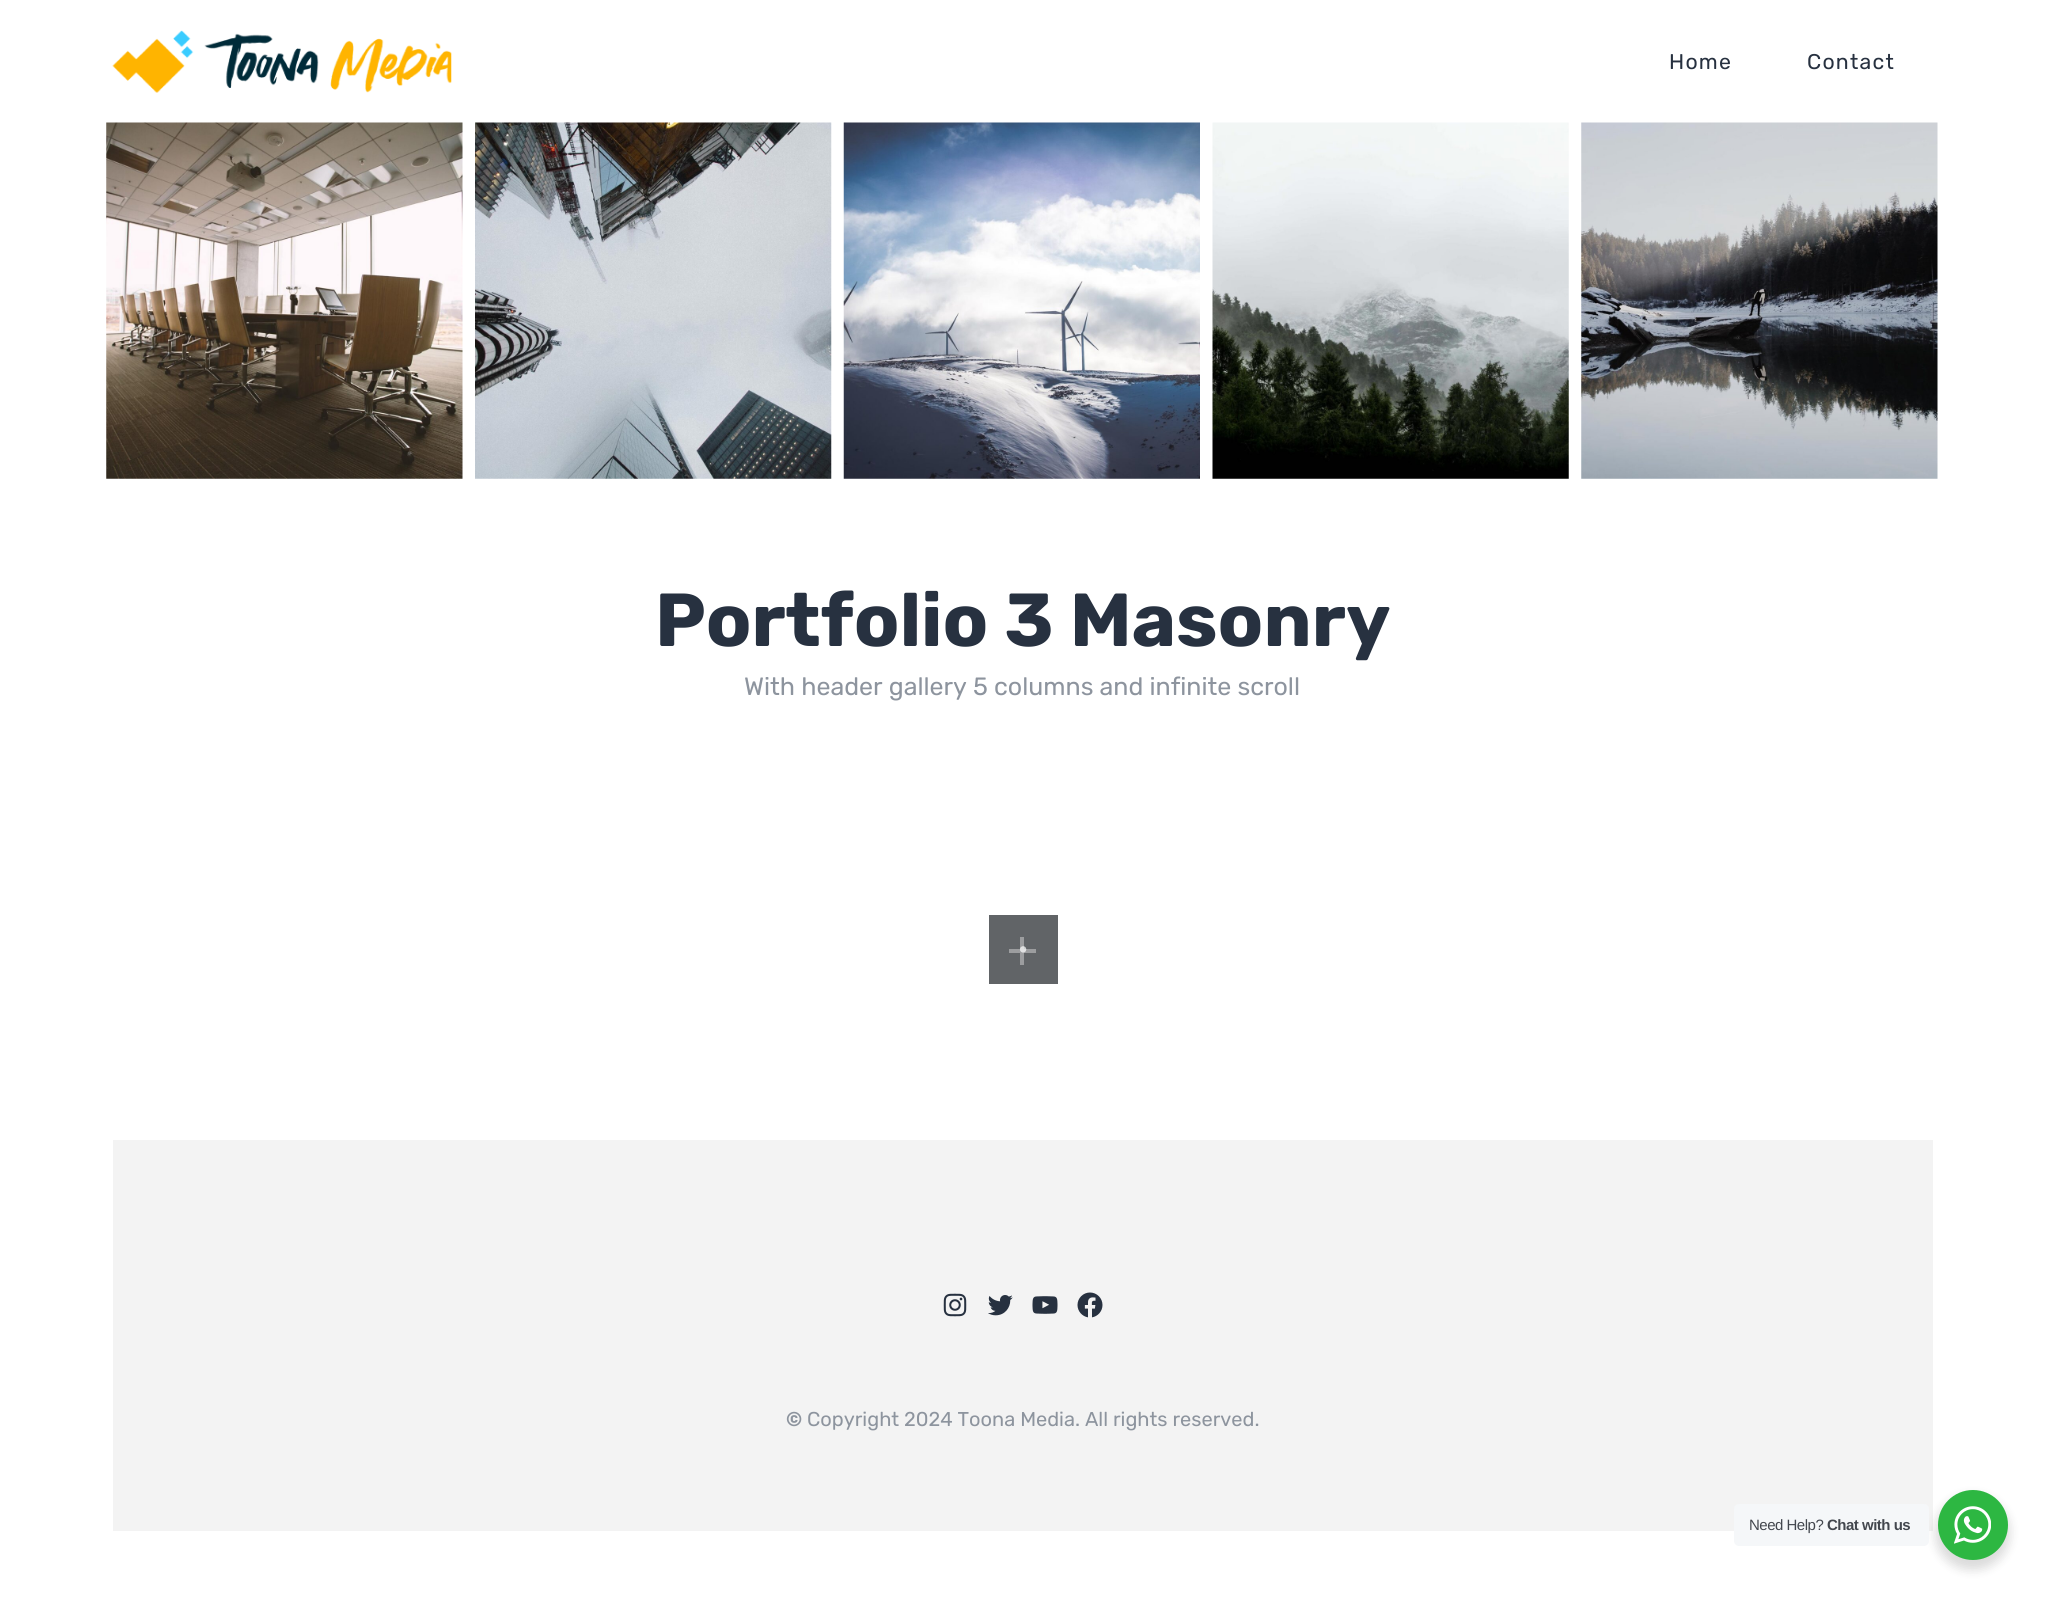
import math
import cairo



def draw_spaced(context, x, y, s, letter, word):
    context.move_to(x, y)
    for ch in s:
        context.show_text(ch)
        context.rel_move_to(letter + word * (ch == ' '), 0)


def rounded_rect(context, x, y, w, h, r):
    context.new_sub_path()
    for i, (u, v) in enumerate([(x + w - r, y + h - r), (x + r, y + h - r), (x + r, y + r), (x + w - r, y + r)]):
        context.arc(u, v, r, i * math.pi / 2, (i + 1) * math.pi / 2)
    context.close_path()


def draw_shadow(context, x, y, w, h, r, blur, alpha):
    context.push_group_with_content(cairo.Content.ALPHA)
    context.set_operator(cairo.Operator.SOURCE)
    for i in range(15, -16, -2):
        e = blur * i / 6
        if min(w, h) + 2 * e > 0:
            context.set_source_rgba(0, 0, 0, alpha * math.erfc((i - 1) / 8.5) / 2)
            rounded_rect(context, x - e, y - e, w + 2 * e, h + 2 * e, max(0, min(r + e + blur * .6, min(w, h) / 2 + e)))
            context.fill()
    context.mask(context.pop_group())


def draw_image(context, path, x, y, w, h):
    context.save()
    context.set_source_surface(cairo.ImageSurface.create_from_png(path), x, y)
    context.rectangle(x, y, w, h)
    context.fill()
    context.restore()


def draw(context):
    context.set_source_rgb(1, 1, 1)
    context.paint()
    draw_image(context, "images/1.png", 112, 30, 340, 63)
    draw_image(context, "images/2.png", 106, 122, 357, 357)
    draw_image(context, "images/3.png", 475, 122, 357, 357)
    draw_image(context, "images/4.png", 843, 122, 357, 357)
    draw_image(context, "images/5.png", 1212, 122, 357, 357)
    draw_image(context, "images/6.png", 1581, 122, 357, 357)
    context.set_source_rgb(97 / 255, 100 / 255, 103 / 255)
    context.rectangle(989, 915, 69, 69)
    context.fill()
    context.set_source_rgb(156 / 255, 157 / 255, 159 / 255)
    context.rectangle(1020, 937, 4, 28)
    context.fill()
    context.rectangle(1009, 949, 27, 4)
    context.fill()
    context.arc(1023.1, 949.4, 1.6, 0, 2 * math.pi)
    context.set_source_rgba(1, 1, 1, 0.46)
    context.set_line_width(3.1)
    context.stroke()
    context.arc(1023.1, 949.4, 1.6, 0, 2 * math.pi)
    context.stroke()
    context.set_source_rgb(243 / 255, 243 / 255, 243 / 255)
    context.rectangle(113, 1140, 1820, 391)
    context.fill()
    draw_image(context, "images/7.png", 943, 1293, 24, 24)
    draw_image(context, "images/8.png", 988, 1295, 25, 21)
    draw_image(context, "images/9.png", 1032, 1296, 26, 18)
    draw_image(context, "images/10.png", 1077, 1292, 26, 26)
    context.set_source_rgb(0, 0, 0)
    draw_shadow(context, 1935, 1495, 75, 75, 37.5, 5, 0.14)
    context.set_source_rgb(245 / 255, 247 / 255, 249 / 255)
    rounded_rect(context, 1734, 1504, 195, 42, 5)
    context.fill()
    context.set_source_rgb(45 / 255, 183 / 255, 66 / 255)
    context.arc(1973, 1525, 35, 0, 2 * math.pi)
    context.fill()
    draw_image(context, "images/11.png", 1954, 1506, 37, 38)
    context.select_font_face("Rubik")
    context.set_font_size(21.25)
    context.set_source_rgb(39 / 255, 49 / 255, 64 / 255)
    draw_spaced(context, 1669, 69, "Home", 1.25, 0)
    draw_spaced(context, 1807, 69, "Contact", 1.25, 0)
    context.select_font_face("Rubik", cairo.FontSlant.NORMAL, cairo.FontWeight.BOLD)
    context.set_font_size(75)
    context.move_to(655, 646)
    context.show_text("Portfolio 3 Masonry")
    context.select_font_face("Rubik")
    context.set_font_size(25)
    context.set_source_rgb(141 / 255, 148 / 255, 158 / 255)
    context.move_to(744, 695)
    context.show_text("With header gallery 5 columns and infinite scroll")
    context.select_font_face("Rubik", cairo.FontSlant.NORMAL, cairo.FontWeight.BOLD)
    context.set_font_size(20)
    context.move_to(786, 1426)
    context.show_text("©")
    context.select_font_face("Rubik")
    context.move_to(807, 1426)
    context.show_text("Copyright 2024 Toona Media. All rights reserved.")
    context.select_font_face("Liberation Sans")
    context.set_font_size(15)
    context.set_source_rgb(67 / 255, 71 / 255, 78 / 255)
    draw_spaced(context, 1749, 1530, "Need Help?", -0.5, 0)
    context.select_font_face("Liberation Sans", cairo.FontSlant.NORMAL, cairo.FontWeight.BOLD)
    draw_spaced(context, 1827, 1530, "Chat with us", -0.5, 0)


surface = cairo.ImageSurface(cairo.Format.RGB24, 2045, 1597)
context = cairo.Context(surface)
options = cairo.FontOptions()
options.set_hint_metrics(cairo.HintMetrics.OFF)
options.set_hint_style(cairo.HintStyle.NONE)
context.set_font_options(options)
context.set_miter_limit(4)
draw(context)
surface.write_to_png("out.png")
